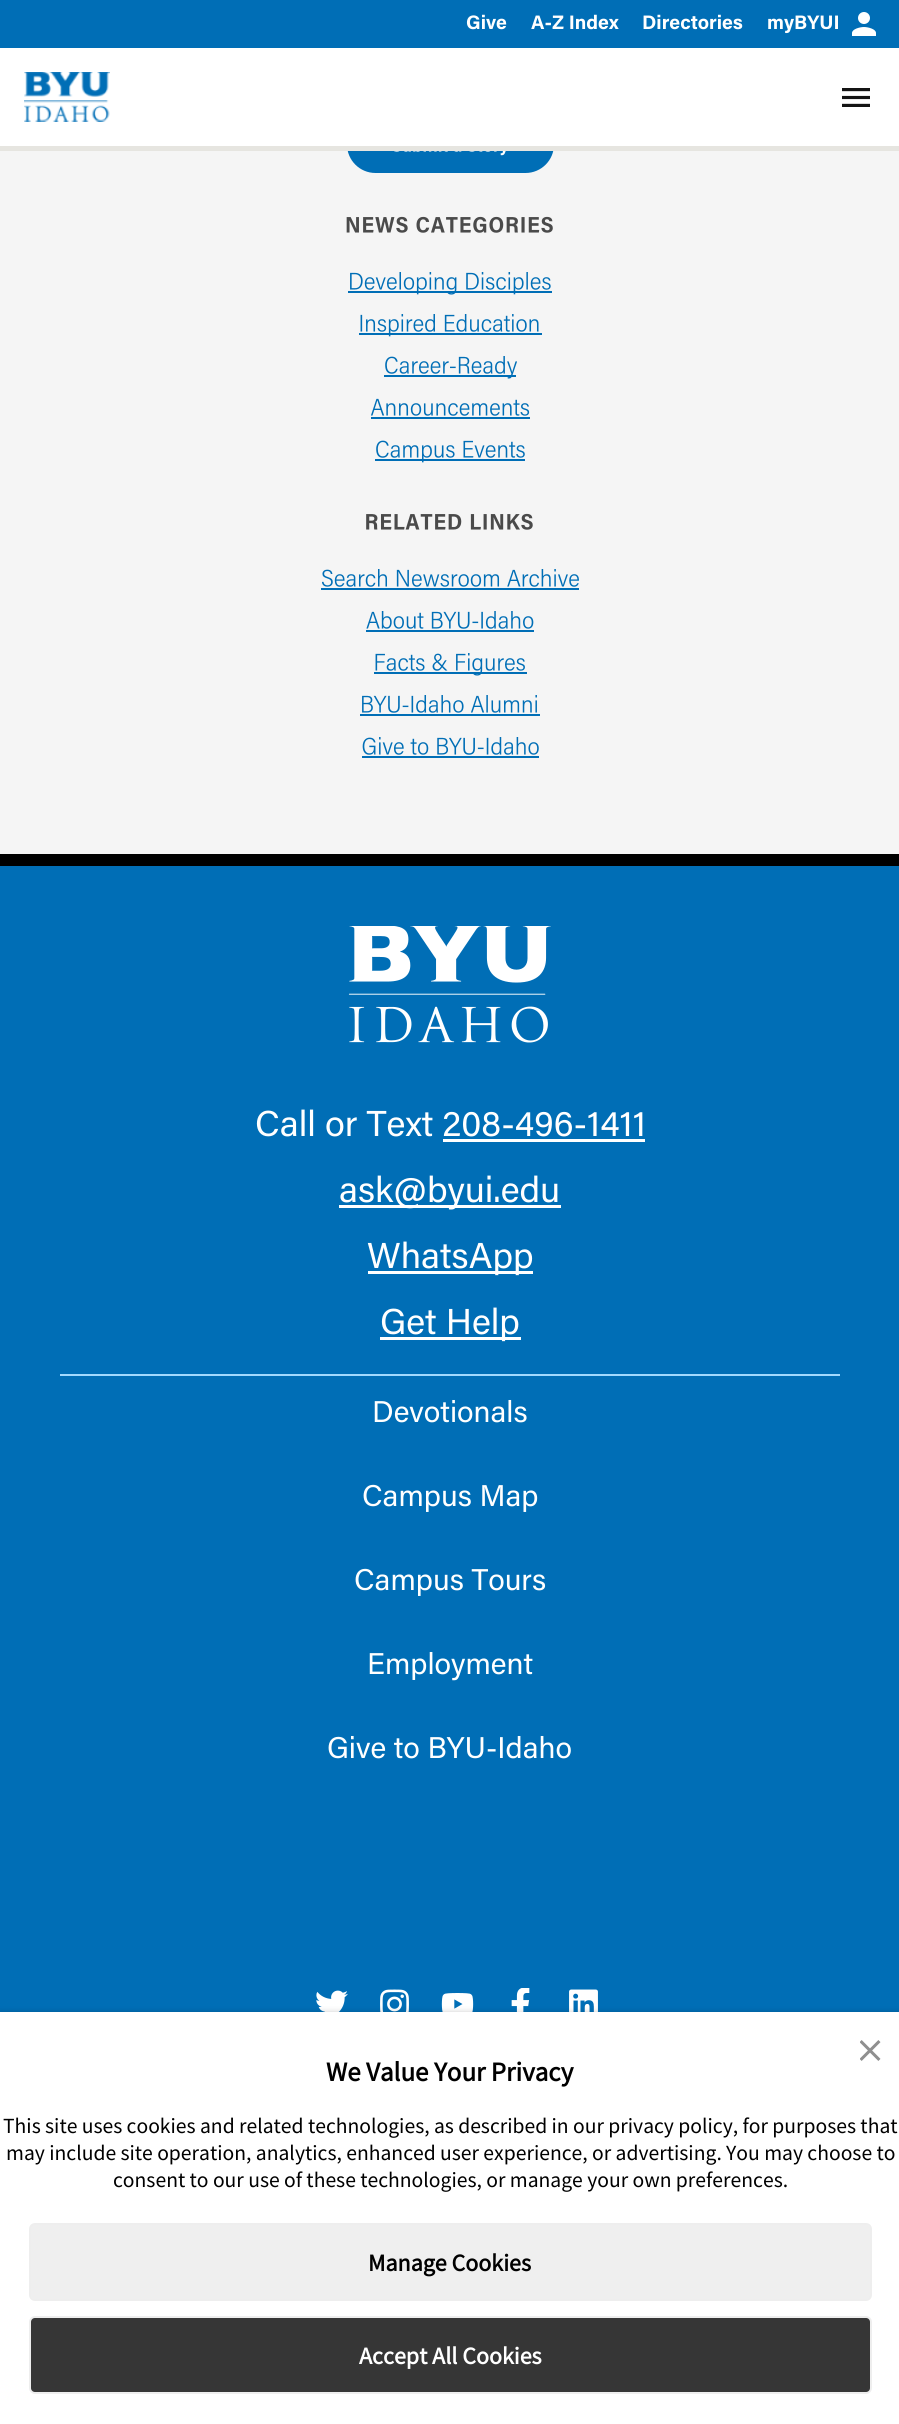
import math
import cairo



def rounded_rect(context, x, y, w, h, r):
    context.new_sub_path()
    for i, (u, v) in enumerate([(x + w - r, y + h - r), (x + r, y + h - r), (x + r, y + r), (x + w - r, y + r)]):
        context.arc(u, v, r, i * math.pi / 2, (i + 1) * math.pi / 2)
    context.close_path()


def draw_shadow(context, x, y, w, h, r, blur, alpha):
    context.push_group_with_content(cairo.Content.ALPHA)
    context.set_operator(cairo.Operator.SOURCE)
    for i in range(15, -16, -2):
        e = blur * i / 6
        if min(w, h) + 2 * e > 0:
            context.set_source_rgba(0, 0, 0, alpha * math.erfc((i - 1) / 8.5) / 2)
            rounded_rect(context, x - e, y - e, w + 2 * e, h + 2 * e, max(0, min(r + e + blur * .6, min(w, h) / 2 + e)))
            context.fill()
    context.mask(context.pop_group())


def draw_image(context, path, x, y, w, h):
    context.save()
    context.set_source_surface(cairo.ImageSurface.create_from_png(path), x, y)
    context.rectangle(x, y, w, h)
    context.fill()
    context.restore()


def draw(context):
    context.set_source_rgb(245 / 255, 245 / 255, 245 / 255)
    context.paint()
    context.set_source_rgb(0, 110 / 255, 182 / 255)
    context.rectangle(0, 0, 899, 48)
    context.fill()
    draw_image(context, "images/1.png", 852, 12, 24, 24)
    rounded_rect(context, 347, 116, 207, 57, 28.5)
    context.fill()
    context.set_source_rgb(1, 1, 1)
    context.rectangle(0, 48, 899, 98)
    context.fill()
    context.set_source_rgb(230 / 255, 229 / 255, 224 / 255)
    context.rectangle(0, 146, 899, 5)
    context.fill()
    draw_image(context, "images/2.png", 24, 72, 86, 50)
    draw_image(context, "images/3.png", 842, 88, 28, 19)
    draw_image(context, "images/4.png", 394, 151, 112, 5)
    draw_image(context, "images/5.png", 346, 216, 207, 17)
    context.set_source_rgb(0, 110 / 255, 182 / 255)
    context.rectangle(348, 291, 204, 2)
    context.fill()
    draw_image(context, "images/6.png", 350, 272, 201, 23)
    context.rectangle(359, 333, 183, 2)
    context.fill()
    draw_image(context, "images/7.png", 360, 314, 179, 23)
    context.rectangle(384, 375, 132, 2)
    context.fill()
    draw_image(context, "images/8.png", 385, 356, 132, 23)
    draw_image(context, "images/9.png", 371, 398, 159, 18)
    context.rectangle(371, 417, 159, 2)
    context.fill()
    context.rectangle(375, 459, 150, 2)
    context.fill()
    draw_image(context, "images/10.png", 376, 440, 149, 23)
    draw_image(context, "images/11.png", 366, 513, 167, 17)
    draw_image(context, "images/12.png", 322, 569, 257, 18)
    context.rectangle(321, 588, 258, 2)
    context.fill()
    draw_image(context, "images/13.png", 366, 611, 168, 18)
    context.rectangle(366, 630, 168, 2)
    context.fill()
    context.rectangle(374, 672, 153, 2)
    context.fill()
    draw_image(context, "images/14.png", 375, 653, 150, 23)
    draw_image(context, "images/15.png", 362, 695, 175, 18)
    context.rectangle(360, 714, 180, 2)
    context.fill()
    draw_image(context, "images/16.png", 362, 737, 177, 18)
    context.rectangle(362, 756, 177, 2)
    context.fill()
    context.rectangle(0, 866, 899, 1146)
    context.fill()
    context.set_source_rgb(0, 0, 0)
    context.rectangle(0, 854, 899, 12)
    context.fill()
    draw_image(context, "images/17.png", 348, 926, 203, 117)
    context.set_source_rgb(1, 1, 1)
    context.rectangle(443, 1139, 202, 3)
    context.fill()
    context.rectangle(339, 1205, 222, 3)
    context.fill()
    context.rectangle(368, 1271, 165, 3)
    context.fill()
    context.rectangle(380, 1337, 141, 3)
    context.fill()
    context.set_source_rgb(162 / 255, 218 / 255, 1)
    context.rectangle(60, 1374, 780, 2)
    context.fill()
    draw_image(context, "images/19.png", 316, 1990, 32, 22)
    draw_image(context, "images/20.png", 380, 1989, 29, 23)
    draw_image(context, "images/21.png", 441, 1993, 33, 19)
    draw_image(context, "images/22.png", 511, 1988, 19, 24)
    draw_image(context, "images/23.png", 569, 1989, 29, 23)
    context.set_source_rgb(0, 0, 0)
    draw_shadow(context, 0, 2012, 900, 412, 0, 3, 0.2)
    context.set_source_rgb(1, 1, 1)
    context.rectangle(0, 2012, 899, 412)
    context.fill()
    draw_image(context, "images/18.png", 860, 2040, 21, 21)
    context.set_source_rgb(239 / 255, 239 / 255, 239 / 255)
    rounded_rect(context, 30, 2224, 841, 76, 5)
    context.fill_preserve()
    context.set_source_rgb(238 / 255, 238 / 255, 238 / 255)
    context.stroke()
    context.set_source_rgb(54 / 255, 54 / 255, 54 / 255)
    rounded_rect(context, 30, 2317, 841, 76, 5)
    context.fill_preserve()
    context.set_source_rgb(238 / 255, 238 / 255, 238 / 255)
    context.stroke()
    context.select_font_face("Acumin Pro", cairo.FontSlant.NORMAL, cairo.FontWeight.BOLD)
    context.set_font_size(19.5)
    context.set_source_rgb(1, 1, 1)
    context.move_to(466, 29)
    context.show_text("Give")
    context.move_to(531, 29)
    context.show_text("A-Z Index")
    context.move_to(642, 29)
    context.show_text("Directories")
    context.move_to(767, 29)
    context.show_text("myBYUI")
    context.select_font_face("Acumin Pro")
    context.set_font_size(36)
    context.move_to(255, 1136)
    context.show_text("Call or Text 208-496-1411")
    context.move_to(339, 1202)
    context.show_text("ask@byui.edu")
    context.move_to(367, 1268)
    context.show_text("WhatsApp")
    context.move_to(380, 1334)
    context.show_text("Get Help")
    context.set_font_size(30)
    context.move_to(372, 1422)
    context.show_text("Devotionals")
    context.move_to(362, 1506)
    context.show_text("Campus Map")
    context.move_to(354, 1590)
    context.show_text("Campus Tours")
    context.move_to(367, 1674)
    context.show_text("Employment")
    context.move_to(327, 1758)
    context.show_text("Give to BYU-Idaho")
    context.select_font_face("Source Sans Pro", cairo.FontSlant.NORMAL, cairo.FontWeight.BOLD)
    context.set_font_size(27)
    context.set_source_rgb(0, 0, 0)
    context.move_to(326, 2081)
    context.show_text("We Value Your Privacy")
    context.select_font_face("Source Sans Pro")
    context.set_font_size(21.6)
    context.move_to(3, 2133)
    context.show_text("This site uses cookies and related technologies, as described in our privacy policy, for purposes that")
    context.move_to(6, 2160)
    context.show_text("may include site operation, analytics, enhanced user experience, or advertising. You may choose to")
    context.move_to(113, 2187)
    context.show_text("consent to our use of these technologies, or manage your own preferences.")
    context.select_font_face("Source Sans Pro", cairo.FontSlant.NORMAL, cairo.FontWeight.BOLD)
    context.set_font_size(24)
    context.move_to(368, 2271)
    context.show_text("Manage Cookies")
    context.set_source_rgb(1, 1, 1)
    context.move_to(359, 2364)
    context.show_text("Accept All Cookies")


surface = cairo.ImageSurface(cairo.Format.RGB24, 899, 2424)
context = cairo.Context(surface)
options = cairo.FontOptions()
options.set_hint_metrics(cairo.HintMetrics.OFF)
options.set_hint_style(cairo.HintStyle.NONE)
context.set_font_options(options)
context.set_miter_limit(4)
draw(context)
surface.write_to_png("out.png")
